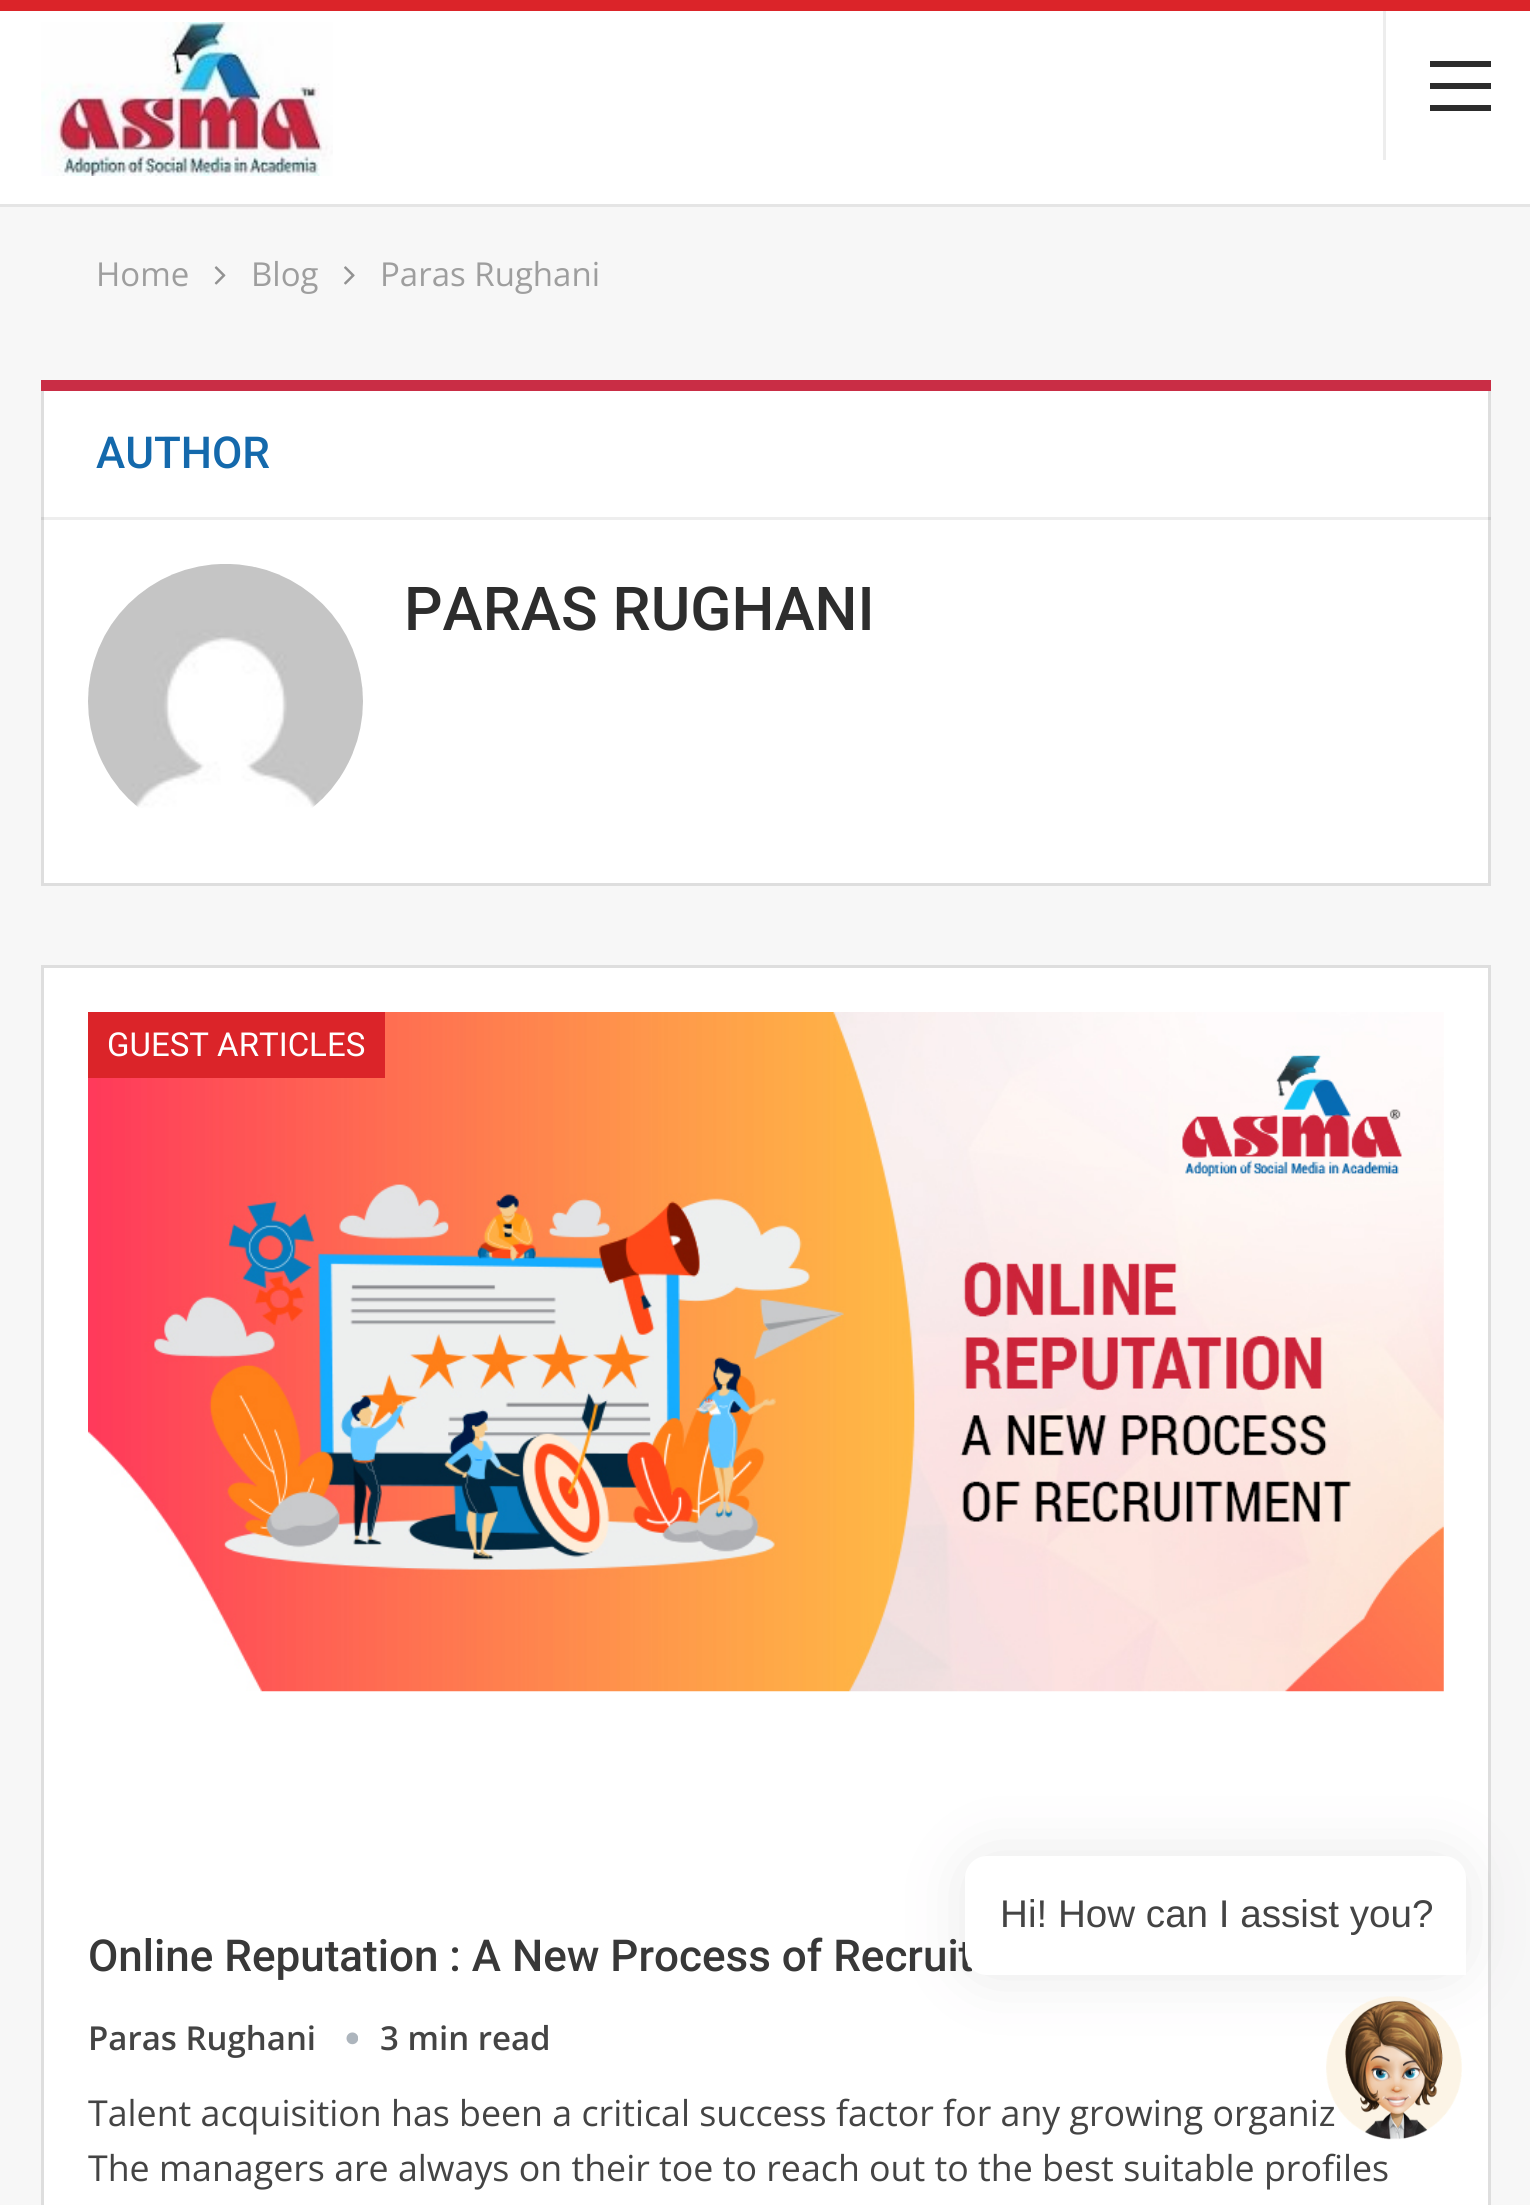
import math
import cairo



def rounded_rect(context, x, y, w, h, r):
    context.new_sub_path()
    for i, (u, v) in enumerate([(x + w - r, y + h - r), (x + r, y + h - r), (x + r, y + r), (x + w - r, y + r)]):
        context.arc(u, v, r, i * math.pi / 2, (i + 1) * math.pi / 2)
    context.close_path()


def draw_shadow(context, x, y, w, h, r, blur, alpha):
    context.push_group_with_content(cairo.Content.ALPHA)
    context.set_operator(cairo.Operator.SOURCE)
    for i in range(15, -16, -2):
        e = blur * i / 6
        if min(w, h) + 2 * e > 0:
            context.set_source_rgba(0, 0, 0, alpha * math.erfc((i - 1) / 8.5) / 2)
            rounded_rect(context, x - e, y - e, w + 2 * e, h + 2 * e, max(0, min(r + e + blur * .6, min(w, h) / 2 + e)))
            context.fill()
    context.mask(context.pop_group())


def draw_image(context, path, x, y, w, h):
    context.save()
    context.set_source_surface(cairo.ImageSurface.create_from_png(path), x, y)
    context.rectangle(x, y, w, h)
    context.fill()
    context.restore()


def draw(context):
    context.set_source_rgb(219 / 255, 36 / 255, 41 / 255)
    context.paint()
    context.set_source_rgb(247 / 255, 247 / 255, 247 / 255)
    context.rectangle(0, 207, 1530, 1998)
    context.fill()
    context.set_source_rgb(1, 1, 1)
    context.rectangle(0, 11, 1530, 193)
    context.fill()
    context.set_source_rgb(229 / 255, 229 / 255, 229 / 255)
    context.rectangle(0, 204, 1530, 3)
    context.fill()
    draw_image(context, "images/1.png", 41, 22, 292, 154)
    context.set_source_rgb(237 / 255, 237 / 255, 237 / 255)
    context.rectangle(1383, 11, 3, 149)
    context.fill()
    context.set_source_rgb(44 / 255, 44 / 255, 44 / 255)
    context.rectangle(1430, 83, 61, 6)
    context.fill()
    context.rectangle(1430, 61, 61, 6)
    context.fill()
    context.rectangle(1430, 105, 61, 6)
    context.fill()
    draw_image(context, "images/2.png", 214, 266, 12, 19)
    draw_image(context, "images/3.png", 344, 266, 11, 19)
    context.set_source_rgb(1, 1, 1)
    context.rectangle(44, 391, 1444, 492)
    context.fill()
    context.rectangle(42.5, 381.5, 1447, 503)
    context.set_source_rgb(222 / 255, 222 / 255, 222 / 255)
    context.set_line_width(3)
    context.stroke()
    context.set_source_rgb(201 / 255, 45 / 255, 69 / 255)
    context.rectangle(41, 380, 1450, 11)
    context.fill()
    context.set_source_rgba(0, 0, 0, 0.07)
    context.rectangle(41, 517, 1450, 3)
    context.fill()
    draw_image(context, "images/4.png", 88, 564, 275, 244)
    context.set_source_rgb(1, 1, 1)
    context.rectangle(42.5, 966.5, 1447, 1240)
    context.fill_preserve()
    context.set_source_rgb(222 / 255, 222 / 255, 222 / 255)
    context.stroke()
    draw_image(context, "images/5.png", 88, 1012, 1356, 680)
    context.set_source_rgb(219 / 255, 36 / 255, 41 / 255)
    context.rectangle(88, 1012, 297, 66)
    context.fill()
    draw_image(context, "images/6.png", 346, 2032, 12, 13)
    context.set_source_rgb(64 / 255, 63 / 255, 66 / 255)
    draw_shadow(context, 965, 1856, 501, 119, 22, 33, 0.12)
    context.select_font_face("Open Sans")
    context.set_font_size(33)
    context.set_source_rgb(158 / 255, 158 / 255, 158 / 255)
    context.move_to(96, 286)
    context.show_text("Home")
    context.move_to(251, 286)
    context.show_text("Blog")
    context.move_to(380, 286)
    context.show_text("Paras Rughani")
    context.select_font_face("Roboto Medium")
    context.set_font_size(44)
    context.set_source_rgb(20 / 255, 105 / 255, 172 / 255)
    context.move_to(96, 468)
    context.show_text("AUTHOR")
    context.set_font_size(60.5)
    context.set_source_rgb(45 / 255, 45 / 255, 45 / 255)
    context.move_to(404, 630)
    context.show_text("PARAS RUGHANI")
    context.select_font_face("Roboto")
    context.set_font_size(33)
    context.set_source_rgb(1, 1, 1)
    context.move_to(107, 1056)
    context.show_text("GUEST ARTICLES")
    context.select_font_face("Roboto Medium")
    context.set_font_size(44)
    context.set_source_rgb(56 / 255, 56 / 255, 56 / 255)
    context.move_to(88, 1971)
    context.show_text("Online Reputation : A New Process of Recruit")
    context.select_font_face("Open Sans SemiBold")
    context.set_font_size(33)
    context.set_source_rgb(68 / 255, 68 / 255, 68 / 255)
    context.move_to(88, 2050)
    context.show_text("Paras Rughani")
    context.move_to(380, 2050)
    context.show_text("3 min read")
    context.select_font_face("Open Sans")
    context.set_font_size(35.75)
    context.move_to(88, 2126)
    context.show_text("Talent acquisition has been a critical success factor for any growing organiz")
    context.move_to(88, 2181)
    context.show_text("The managers are always on their toe to reach out to the best suitable profiles")
    context.set_source_rgb(1, 1, 1)
    context.new_path()
    context.move_to(987, 1856)
    context.line_to(1444, 1856)
    context.curve_to(1456, 1856, 1466, 1866, 1466, 1878)
    context.line_to(1466, 1975)
    context.line_to(987, 1975)
    context.curve_to(975, 1975, 965, 1965, 965, 1953)
    context.line_to(965, 1878)
    context.curve_to(965, 1866, 975, 1856, 987, 1856)
    context.close_path()
    context.fill()
    context.select_font_face("Liberation Sans")
    context.set_font_size(38.6)
    context.set_source_rgb(68 / 255, 68 / 255, 68 / 255)
    context.move_to(1000, 1927)
    context.show_text("Hi! How can I assist you?")
    draw_image(context, "images/7.png", 1326, 1996, 136, 144)


surface = cairo.ImageSurface(cairo.Format.RGB24, 1530, 2205)
context = cairo.Context(surface)
options = cairo.FontOptions()
options.set_hint_metrics(cairo.HintMetrics.OFF)
options.set_hint_style(cairo.HintStyle.NONE)
context.set_font_options(options)
context.set_miter_limit(4)
draw(context)
surface.write_to_png("out.png")
